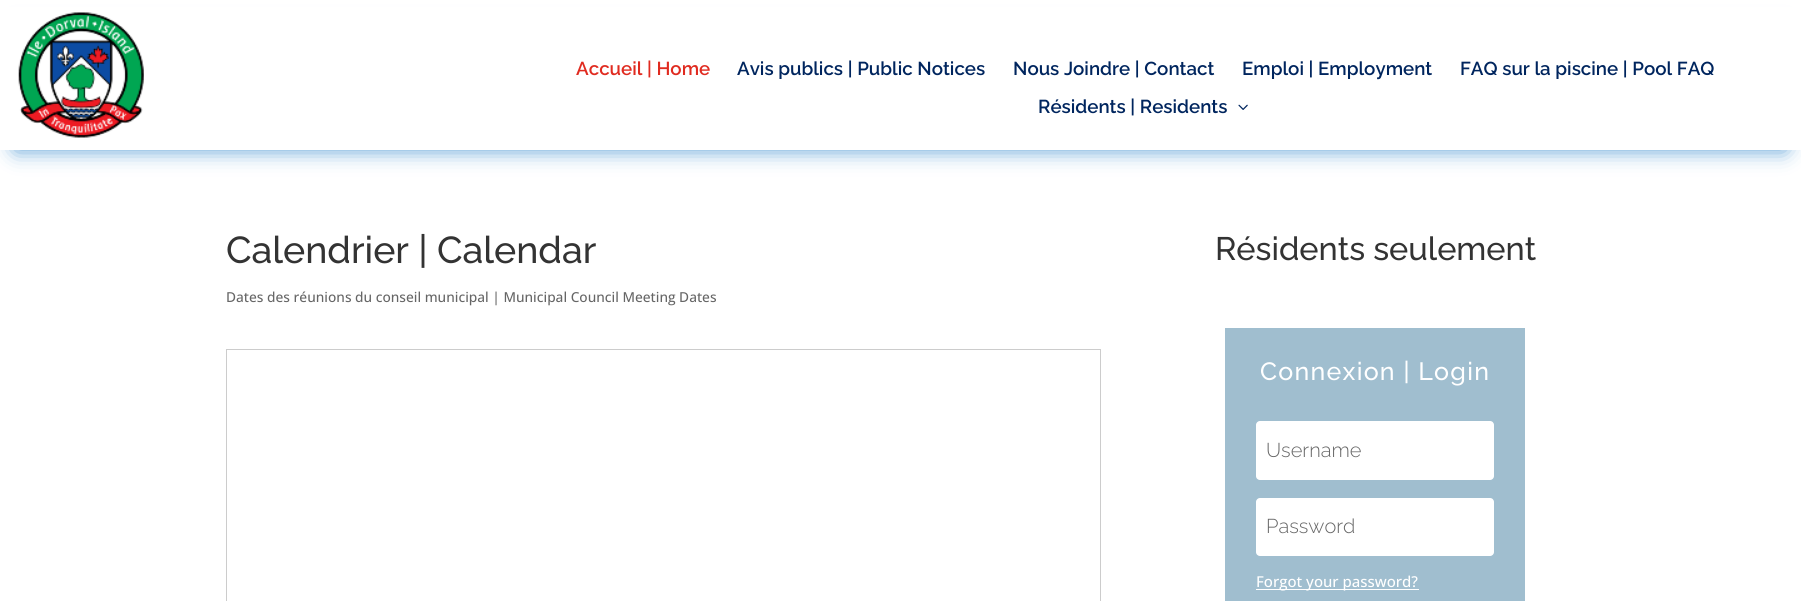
import math
import cairo



def draw_spaced(context, x, y, s, letter, word):
    context.move_to(x, y)
    for ch in s:
        context.show_text(ch)
        context.rel_move_to(letter + word * (ch == ' '), 0)


def rounded_rect(context, x, y, w, h, r):
    context.new_sub_path()
    for i, (u, v) in enumerate([(x + w - r, y + h - r), (x + r, y + h - r), (x + r, y + r), (x + w - r, y + r)]):
        context.arc(u, v, r, i * math.pi / 2, (i + 1) * math.pi / 2)
    context.close_path()


def draw_shadow(context, x, y, w, h, r, blur, alpha):
    context.push_group_with_content(cairo.Content.ALPHA)
    context.set_operator(cairo.Operator.SOURCE)
    for i in range(15, -16, -2):
        e = blur * i / 6
        if min(w, h) + 2 * e > 0:
            context.set_source_rgba(0, 0, 0, alpha * math.erfc((i - 1) / 8.5) / 2)
            rounded_rect(context, x - e, y - e, w + 2 * e, h + 2 * e, max(0, min(r + e + blur * .6, min(w, h) / 2 + e)))
            context.fill()
    context.mask(context.pop_group())


def draw_image(context, path, x, y, w, h):
    context.save()
    context.set_source_surface(cairo.ImageSurface.create_from_png(path), x, y)
    context.rectangle(x, y, w, h)
    context.fill()
    context.restore()


def draw(context):
    context.set_source_rgb(1, 1, 1)
    context.paint()
    context.set_source_rgb(12 / 255, 113 / 255, 195 / 255)
    draw_shadow(context, 16, 31, 1769, 118, 0, 11, 0.76)
    context.set_source_rgb(1, 1, 1)
    context.rectangle(0, 7, 1801, 143)
    context.fill()
    draw_image(context, "images/1.png", 18, 12, 126, 126)
    draw_image(context, "images/2.png", 1238, 104, 10, 6)
    context.rectangle(226.5, 349.5, 874, 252)
    context.set_source_rgb(204 / 255, 204 / 255, 204 / 255)
    context.set_line_width(1)
    context.stroke()
    context.set_source_rgb(160 / 255, 190 / 255, 207 / 255)
    context.rectangle(1225, 328, 300, 273)
    context.fill()
    context.set_source_rgb(1, 1, 1)
    rounded_rect(context, 1256, 421, 238, 59, 4)
    context.fill()
    rounded_rect(context, 1256, 498, 238, 58, 4)
    context.fill()
    context.rectangle(1256, 589, 163, 1)
    context.fill()
    context.select_font_face("Raleway SemiBold")
    context.set_font_size(18.75)
    context.set_source_rgb(224 / 255, 43 / 255, 32 / 255)
    context.move_to(576, 75)
    context.show_text("Accueil | Home")
    context.set_source_rgb(0, 37 / 255, 94 / 255)
    context.move_to(737, 75)
    context.show_text("Avis publics | Public Notices")
    context.move_to(1013, 75)
    context.show_text("Nous Joindre | Contact")
    context.move_to(1242, 75)
    context.show_text("Emploi | Employment")
    context.move_to(1460, 75)
    context.show_text("FAQ sur la piscine | Pool FAQ")
    context.move_to(1038, 113)
    context.show_text("Résidents | Residents")
    context.select_font_face("Raleway Medium")
    context.set_font_size(37.5)
    context.set_source_rgb(51 / 255, 51 / 255, 51 / 255)
    context.move_to(226, 263)
    context.show_text("Calendrier | Calendar")
    context.select_font_face("Open Sans Medium")
    context.set_font_size(13.75)
    context.set_source_rgb(102 / 255, 102 / 255, 102 / 255)
    context.move_to(226, 302)
    context.show_text("Dates des réunions du conseil municipal | Municipal Council Meeting Dates")
    context.select_font_face("Raleway Medium")
    context.set_font_size(32.5)
    context.set_source_rgb(51 / 255, 51 / 255, 51 / 255)
    context.move_to(1215, 260)
    context.show_text("Résidents seulement")
    context.set_font_size(25)
    context.set_source_rgb(1, 1, 1)
    draw_spaced(context, 1260, 380, "Connexion | Login", 1.25, 0)
    context.select_font_face("Raleway Light")
    context.set_font_size(20)
    context.set_source_rgb(102 / 255, 102 / 255, 102 / 255)
    context.move_to(1266, 457)
    context.show_text("Username")
    context.move_to(1266, 533)
    context.show_text("Password")
    context.select_font_face("Open Sans Medium")
    context.set_font_size(15)
    context.set_source_rgb(1, 1, 1)
    context.move_to(1256, 587)
    context.show_text("Forgot your password?")


surface = cairo.ImageSurface(cairo.Format.RGB24, 1801, 601)
context = cairo.Context(surface)
options = cairo.FontOptions()
options.set_hint_metrics(cairo.HintMetrics.OFF)
options.set_hint_style(cairo.HintStyle.NONE)
context.set_font_options(options)
context.set_miter_limit(4)
draw(context)
surface.write_to_png("out.png")
